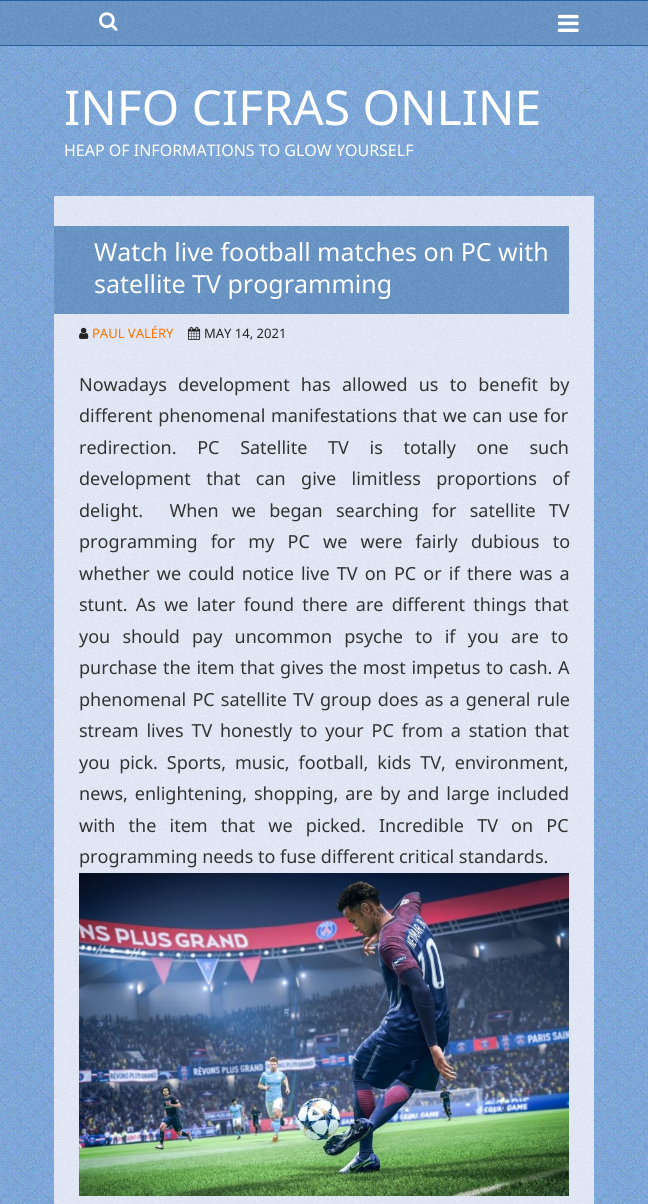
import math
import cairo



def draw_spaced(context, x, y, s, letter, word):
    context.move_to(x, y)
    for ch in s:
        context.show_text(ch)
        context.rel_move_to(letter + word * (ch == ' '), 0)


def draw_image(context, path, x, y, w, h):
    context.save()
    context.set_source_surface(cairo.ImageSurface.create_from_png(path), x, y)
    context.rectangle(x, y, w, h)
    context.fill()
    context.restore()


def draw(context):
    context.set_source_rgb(1, 1, 1)
    context.paint()
    draw_image(context, "images/1.png", 0, 46, 648, 1158)
    draw_image(context, "images/2.png", 0, 1, 648, 44)
    context.set_source_rgb(34 / 255, 96 / 255, 158 / 255)
    context.rectangle(0, 0, 648, 1)
    context.fill()
    context.rectangle(0, 45, 648, 1)
    context.fill()
    draw_image(context, "images/3.png", 99, 12, 19, 19)
    draw_image(context, "images/4.png", 558, 14, 21, 18)
    draw_image(context, "images/5.png", 54, 196, 540, 1008)
    draw_image(context, "images/6.png", 54, 226, 515, 88)
    draw_image(context, "images/7.png", 79, 327, 10, 12)
    draw_image(context, "images/8.png", 188, 326, 13, 14)
    draw_image(context, "images/9.png", 79, 873, 490, 323)
    context.select_font_face("Noto Sans")
    context.set_font_size(48)
    context.set_source_rgb(1, 1, 1)
    context.move_to(64, 125)
    context.show_text("INFO CIFRAS ONLINE")
    context.set_font_size(16)
    context.move_to(64, 156)
    context.show_text("HEAP OF INFORMATIONS TO GLOW YOURSELF")
    context.set_font_size(25)
    context.move_to(94, 261)
    context.show_text("Watch live football matches on PC with")
    context.move_to(94, 293)
    context.show_text("satellite TV programming")
    context.set_font_size(13)
    context.set_source_rgb(1, 114 / 255, 0)
    context.move_to(92, 338)
    context.show_text("PAUL VALÉRY")
    context.set_source_rgb(36 / 255, 36 / 255, 36 / 255)
    context.move_to(204, 338)
    context.show_text("MAY 14, 2021")
    context.set_font_size(18)
    context.set_source_rgb(51 / 255, 51 / 255, 51 / 255)
    draw_spaced(context, 79, 391, "Nowadays development has allowed us to benefit by", 0, 6.5)
    draw_spaced(context, 79, 422, "different phenomenal manifestations that we can use for", 0, 1)
    draw_spaced(context, 79, 454, "redirection. PC Satellite TV is totally one such", 0, 16)
    draw_spaced(context, 79, 485, "development that can give limitless proportions of", 0, 10.75)
    draw_spaced(context, 79, 517, "delight.  When we began searching for satellite TV", 0, 8.5)
    draw_spaced(context, 79, 548, "programming for my PC we were fairly dubious to", 0, 8.5)
    draw_spaced(context, 79, 580, "whether we could notice live TV on PC or if there was a", 0, 2.5)
    draw_spaced(context, 79, 611, "stunt. As we later found there are different things that", 0, 3.5)
    draw_spaced(context, 79, 643, "you should pay uncommon psyche to if you are to", 0, 7.5)
    draw_spaced(context, 79, 674, "purchase the item that gives the most impetus to cash. A", 0, 1)
    draw_spaced(context, 79, 706, "phenomenal PC satellite TV group does as a general rule", 0, 1.5)
    draw_spaced(context, 79, 737, "stream lives TV honestly to your PC from a station that", 0, 3.1)
    draw_spaced(context, 79, 769, "you pick. Sports, music, football, kids TV, environment,", 0, 4.25)
    draw_spaced(context, 79, 800, "news, enlightening, shopping, are by and large included", 0, 2.25)
    draw_spaced(context, 79, 832, "with the item that we picked. Incredible TV on PC", 0, 8.5)
    context.move_to(79, 863)
    context.show_text("programming needs to fuse different critical standards.")


surface = cairo.ImageSurface(cairo.Format.RGB24, 648, 1204)
context = cairo.Context(surface)
options = cairo.FontOptions()
options.set_hint_metrics(cairo.HintMetrics.OFF)
options.set_hint_style(cairo.HintStyle.NONE)
context.set_font_options(options)
context.set_miter_limit(4)
draw(context)
surface.write_to_png("out.png")
